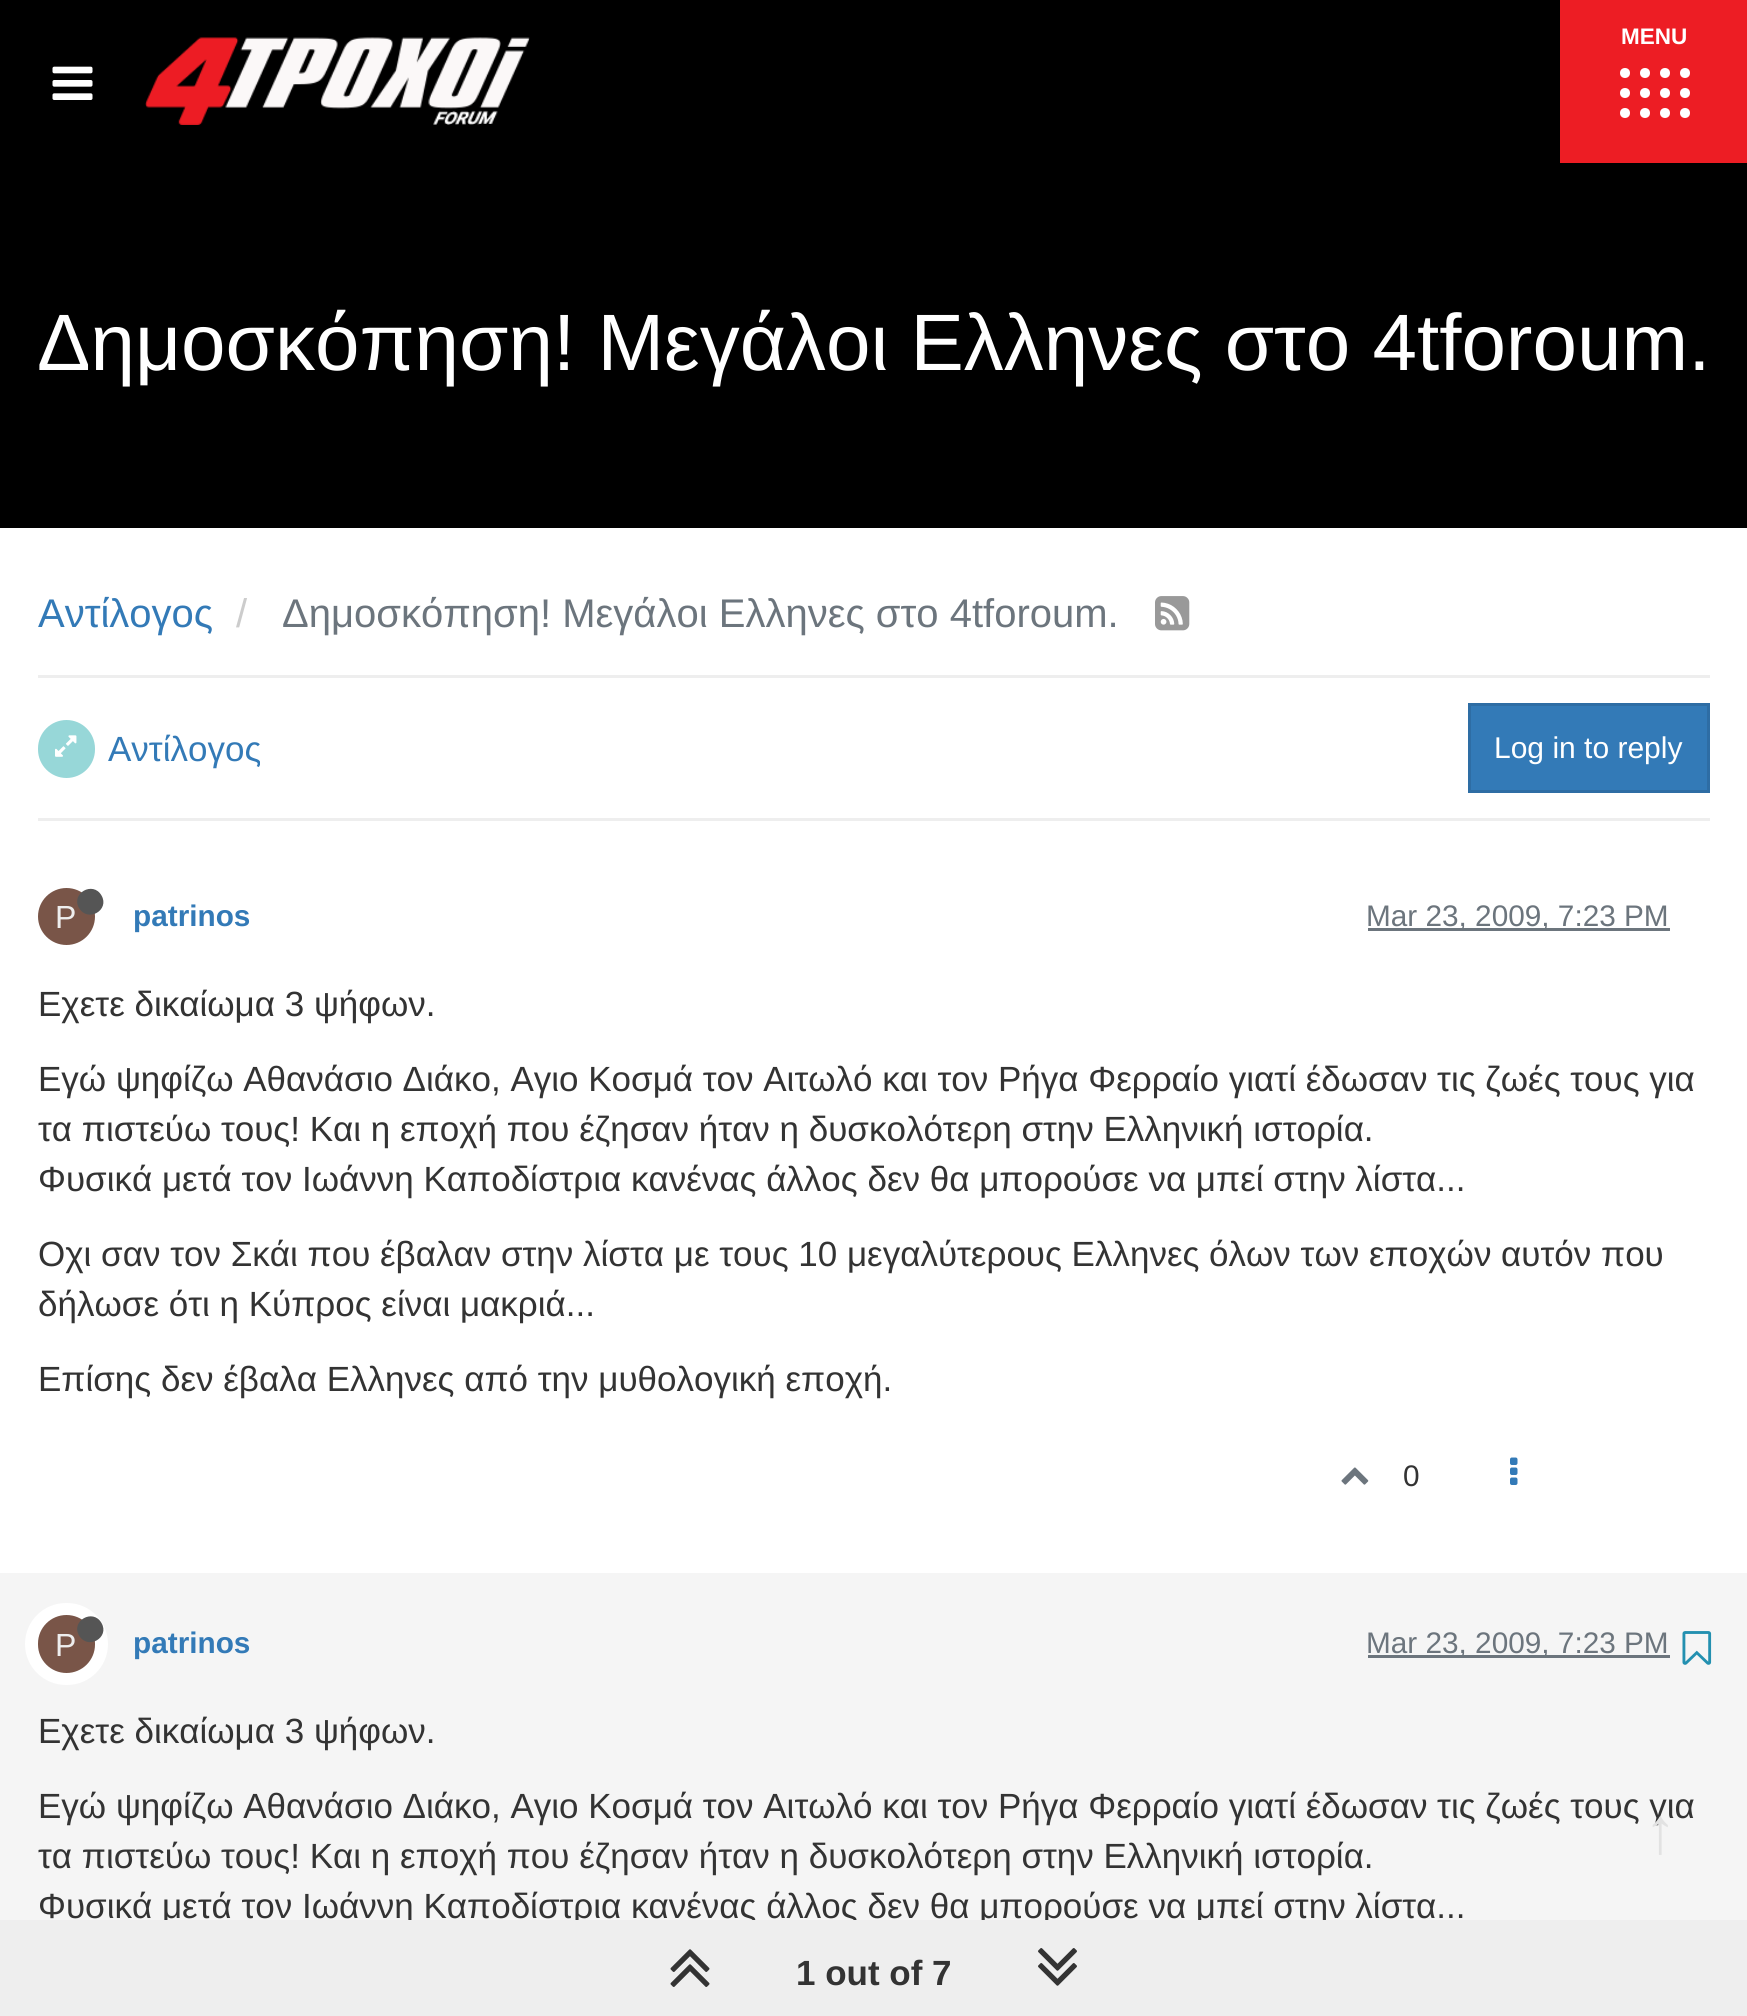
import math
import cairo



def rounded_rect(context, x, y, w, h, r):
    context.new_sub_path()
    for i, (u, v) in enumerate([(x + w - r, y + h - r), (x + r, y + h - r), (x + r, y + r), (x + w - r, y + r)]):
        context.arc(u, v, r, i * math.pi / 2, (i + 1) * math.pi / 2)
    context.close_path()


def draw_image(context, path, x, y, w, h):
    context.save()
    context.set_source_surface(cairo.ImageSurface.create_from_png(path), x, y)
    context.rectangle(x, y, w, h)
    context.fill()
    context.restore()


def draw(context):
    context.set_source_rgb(1, 1, 1)
    context.paint()
    context.set_source_rgb(0, 0, 0)
    context.rectangle(0, 0, 1560, 163)
    context.fill()
    draw_image(context, "images/1.png", 52, 66, 41, 34)
    draw_image(context, "images/2.png", 145, 37, 385, 88)
    context.set_source_rgb(237 / 255, 29 / 255, 36 / 255)
    context.rectangle(1560, 0, 187, 163)
    context.fill()
    context.set_source_rgb(1, 1, 1)
    context.arc(1625, 73, 5, 0, 2 * math.pi)
    context.fill()
    context.arc(1645, 73, 5, 0, 2 * math.pi)
    context.fill()
    context.arc(1665, 73, 5, 0, 2 * math.pi)
    context.fill()
    context.arc(1685, 73, 5, 0, 2 * math.pi)
    context.fill()
    context.arc(1625, 93, 5, 0, 2 * math.pi)
    context.fill()
    context.arc(1645, 93, 5, 0, 2 * math.pi)
    context.fill()
    context.arc(1665, 93, 5, 0, 2 * math.pi)
    context.fill()
    context.arc(1685, 93, 5, 0, 2 * math.pi)
    context.fill()
    context.arc(1625, 113, 5, 0, 2 * math.pi)
    context.fill()
    context.arc(1645, 113, 5, 0, 2 * math.pi)
    context.fill()
    context.arc(1665, 113, 5, 0, 2 * math.pi)
    context.fill()
    context.arc(1685, 113, 5, 0, 2 * math.pi)
    context.fill()
    context.set_source_rgb(0, 0, 0)
    context.rectangle(0, 163, 1747, 365)
    context.fill()
    draw_image(context, "images/3.png", 1155, 596, 35, 35)
    context.set_source_rgb(238 / 255, 238 / 255, 238 / 255)
    context.rectangle(38, 675, 1672, 3)
    context.fill()
    context.rectangle(38, 818, 1672, 3)
    context.fill()
    context.set_source_rgb(151 / 255, 215 / 255, 216 / 255)
    rounded_rect(context, 38, 720, 57, 58, 28.5)
    context.fill()
    draw_image(context, "images/4.png", 55, 735, 22, 22)
    context.set_source_rgb(51 / 255, 122 / 255, 183 / 255)
    context.rectangle(1469.5, 704.5, 239, 87)
    context.fill_preserve()
    context.set_source_rgb(46 / 255, 109 / 255, 164 / 255)
    context.set_line_width(3)
    context.stroke()
    context.set_source_rgb(121 / 255, 85 / 255, 72 / 255)
    context.arc(66.5, 916.5, 28.5, 0, 2 * math.pi)
    context.fill()
    context.set_source_rgb(85 / 255, 85 / 255, 85 / 255)
    context.new_path()
    context.move_to(101.5, 895.5)
    context.curve_to(110, 910, 88, 923, 79, 908)
    context.curve_to(70.5, 893.5, 93, 880.5, 101.5, 895.5)
    context.close_path()
    context.fill()
    context.set_source_rgb(108 / 255, 117 / 255, 125 / 255)
    context.rectangle(1368, 928, 302, 3)
    context.fill()
    draw_image(context, "images/5.png", 1341, 1467, 28, 18)
    draw_image(context, "images/6.png", 1510, 1457, 8, 28)
    context.set_source_rgb(245 / 255, 245 / 255, 245 / 255)
    context.rectangle(0, 1573, 1747, 347)
    context.fill()
    rounded_rect(context, 31.5, 1609.5, 70, 69, 34.5)
    context.set_source_rgb(1, 1, 1)
    context.set_line_width(13)
    context.stroke()
    context.set_source_rgb(121 / 255, 85 / 255, 72 / 255)
    rounded_rect(context, 38, 1615, 57, 58, 28.5)
    context.fill()
    context.set_source_rgb(85 / 255, 85 / 255, 85 / 255)
    context.new_path()
    context.move_to(101.5, 1623)
    context.curve_to(110, 1637.5, 88, 1650.5, 79, 1635.5)
    context.curve_to(70.5, 1621, 93, 1608, 101.5, 1623)
    context.close_path()
    context.fill()
    context.set_source_rgb(108 / 255, 117 / 255, 125 / 255)
    context.rectangle(1368, 1655, 302, 3)
    context.fill()
    draw_image(context, "images/7.png", 1682, 1631, 30, 34)
    context.select_font_face("Liberation Sans", cairo.FontSlant.NORMAL, cairo.FontWeight.BOLD)
    context.set_font_size(22.5)
    context.set_source_rgb(1, 1, 1)
    context.move_to(1621, 44)
    context.show_text("MENU")
    context.select_font_face("Liberation Sans")
    context.set_font_size(80)
    context.move_to(37, 370)
    context.show_text("Δημοσκόπηση! Μεγάλοι Ελληνες στο 4tforoum.")
    context.set_font_size(40)
    context.set_source_rgb(51 / 255, 122 / 255, 183 / 255)
    context.move_to(38, 627)
    context.show_text("Αντίλογος")
    context.set_source_rgb(204 / 255, 204 / 255, 204 / 255)
    context.move_to(236, 627)
    context.show_text("/")
    context.set_source_rgb(108 / 255, 117 / 255, 125 / 255)
    context.move_to(282, 627)
    context.show_text("Δημοσκόπηση! Μεγάλοι Ελληνες στο 4tforoum.")
    context.set_font_size(35)
    context.set_source_rgb(51 / 255, 122 / 255, 183 / 255)
    context.move_to(108, 761)
    context.show_text("Αντίλογος")
    context.set_font_size(30)
    context.set_source_rgb(1, 1, 1)
    context.move_to(1494, 758)
    context.show_text("Log in to reply")
    context.set_font_size(32)
    context.set_source_rgb(238 / 255, 238 / 255, 238 / 255)
    context.move_to(55, 928)
    context.show_text("P")
    context.select_font_face("Liberation Sans", cairo.FontSlant.NORMAL, cairo.FontWeight.BOLD)
    context.set_font_size(29.75)
    context.set_source_rgb(51 / 255, 122 / 255, 183 / 255)
    context.move_to(133, 926)
    context.show_text("patrinos")
    context.select_font_face("Liberation Sans")
    context.set_source_rgb(108 / 255, 117 / 255, 125 / 255)
    context.move_to(1366, 926)
    context.show_text("Mar 23, 2009, 7:23 PM")
    context.set_font_size(35)
    context.set_source_rgb(51 / 255, 51 / 255, 51 / 255)
    context.move_to(38, 1016)
    context.show_text("Εχετε δικαίωμα 3 ψήφων.")
    context.move_to(38, 1091)
    context.show_text("Εγώ ψηφίζω Αθανάσιο Διάκο, Αγιο Κοσμά τον Αιτωλό και τον Ρήγα Φερραίο γιατί έδωσαν τις ζωές τους για")
    context.move_to(38, 1141)
    context.show_text("τα πιστεύω τους! Και η εποχή που έζησαν ήταν η δυσκολότερη στην Ελληνική ιστορία.")
    context.move_to(38, 1191)
    context.show_text("Φυσικά μετά τον Ιωάννη Καποδίστρια κανένας άλλος δεν θα μπορούσε να μπεί στην λίστα...")
    context.move_to(38, 1266)
    context.show_text("Οχι σαν τον Σκάι που έβαλαν στην λίστα με τους 10 μεγαλύτερους Ελληνες όλων των εποχών αυτόν που")
    context.move_to(38, 1316)
    context.show_text("δήλωσε ότι η Κύπρος είναι μακριά...")
    context.move_to(38, 1391)
    context.show_text("Επίσης δεν έβαλα Ελληνες από την μυθολογική εποχή.")
    context.set_font_size(29.75)
    context.move_to(1403, 1486)
    context.show_text("0")
    context.set_font_size(32)
    context.set_source_rgb(238 / 255, 238 / 255, 238 / 255)
    context.move_to(55, 1656)
    context.show_text("P")
    context.select_font_face("Liberation Sans", cairo.FontSlant.NORMAL, cairo.FontWeight.BOLD)
    context.set_font_size(29.75)
    context.set_source_rgb(51 / 255, 122 / 255, 183 / 255)
    context.move_to(133, 1653)
    context.show_text("patrinos")
    context.select_font_face("Liberation Sans")
    context.set_source_rgb(108 / 255, 117 / 255, 125 / 255)
    context.move_to(1366, 1653)
    context.show_text("Mar 23, 2009, 7:23 PM")
    context.set_font_size(35)
    context.set_source_rgb(51 / 255, 51 / 255, 51 / 255)
    context.move_to(38, 1743)
    context.show_text("Εχετε δικαίωμα 3 ψήφων.")
    context.move_to(38, 1818)
    context.show_text("Εγώ ψηφίζω Αθανάσιο Διάκο, Αγιο Κοσμά τον Αιτωλό και τον Ρήγα Φερραίο γιατί έδωσαν τις ζωές τους για")
    context.move_to(38, 1868)
    context.show_text("τα πιστεύω τους! Και η εποχή που έζησαν ήταν η δυσκολότερη στην Ελληνική ιστορία.")
    context.move_to(38, 1918)
    context.show_text("Φυσικά μετά τον Ιωάννη Καποδίστρια κανένας άλλος δεν θα μπορούσε να μπεί στην λίστα...")
    context.set_source_rgb(238 / 255, 238 / 255, 238 / 255)
    context.rectangle(0, 1920, 1747, 96)
    context.fill()
    draw_image(context, "images/8.png", 670, 1949, 40, 38)
    context.select_font_face("Liberation Sans", cairo.FontSlant.NORMAL, cairo.FontWeight.BOLD)
    context.set_source_rgb(51 / 255, 51 / 255, 51 / 255)
    context.move_to(796, 1985)
    context.show_text("1 out of 7")
    draw_image(context, "images/9.png", 1038, 1948, 39, 38)
    context.select_font_face("Liberation Sans")
    context.set_font_size(65)
    context.set_source_rgb(226 / 255, 226 / 255, 226 / 255)
    context.move_to(1644, 1853)
    context.show_text("↑")


surface = cairo.ImageSurface(cairo.Format.RGB24, 1747, 2016)
context = cairo.Context(surface)
options = cairo.FontOptions()
options.set_hint_metrics(cairo.HintMetrics.OFF)
options.set_hint_style(cairo.HintStyle.NONE)
context.set_font_options(options)
context.set_miter_limit(4)
draw(context)
surface.write_to_png("out.png")
